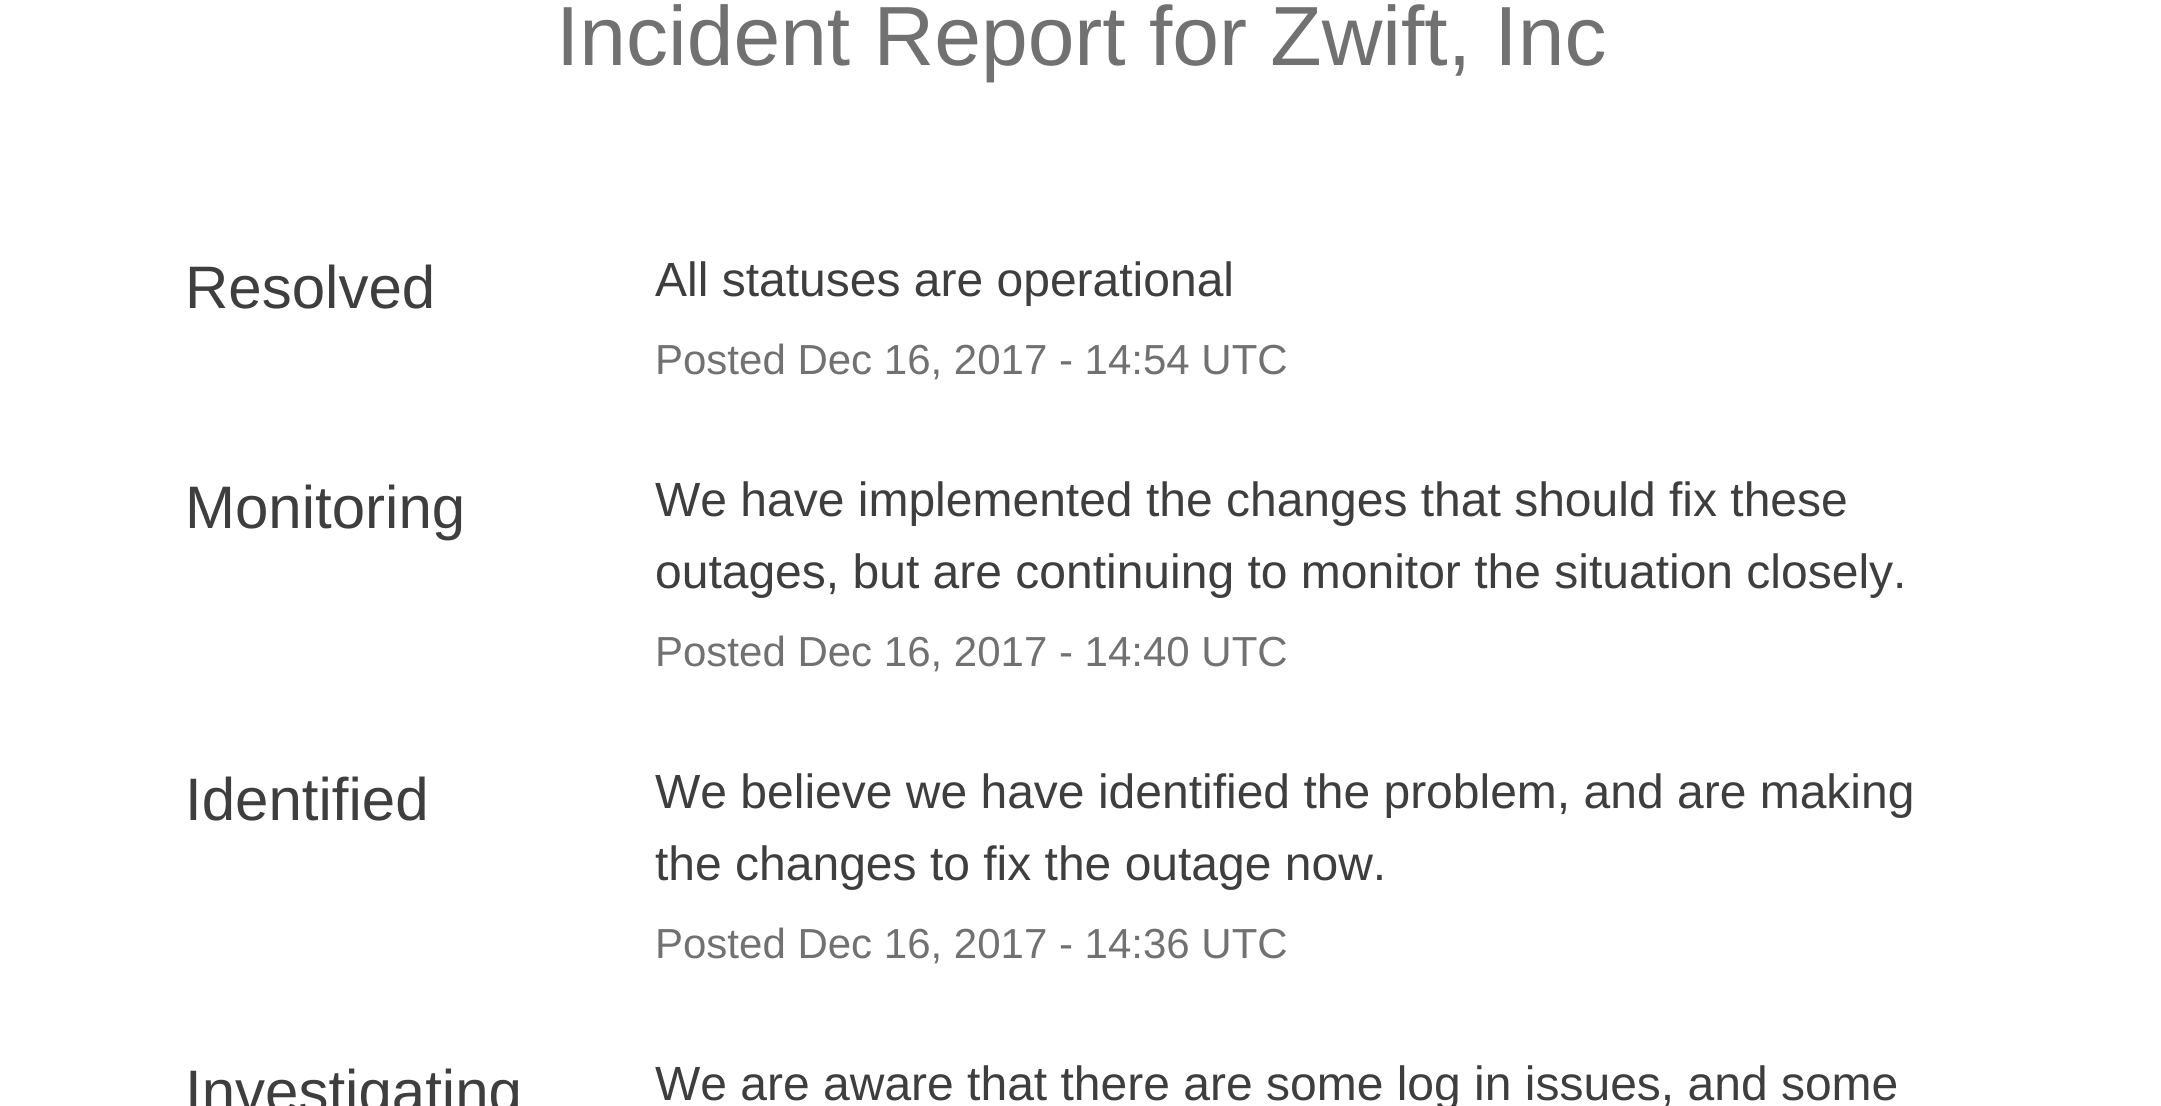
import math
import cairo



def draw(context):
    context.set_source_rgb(1, 1, 1)
    context.paint()
    context.select_font_face("Liberation Sans")
    context.set_font_size(84)
    context.set_source_rgb(113 / 255, 113 / 255, 113 / 255)
    context.move_to(556, 65)
    context.show_text("Incident Report for Zwift, Inc")
    context.set_font_size(60)
    context.set_source_rgb(62 / 255, 62 / 255, 62 / 255)
    context.move_to(185, 308)
    context.show_text("Resolved")
    context.set_font_size(48)
    context.move_to(655, 296)
    context.show_text("All statuses are operational")
    context.set_font_size(42)
    context.set_source_rgb(113 / 255, 113 / 255, 113 / 255)
    context.move_to(655, 374)
    context.show_text("Posted Dec 16, 2017 - 14:54 UTC")
    context.set_font_size(60)
    context.set_source_rgb(62 / 255, 62 / 255, 62 / 255)
    context.move_to(185, 528)
    context.show_text("Monitoring")
    context.set_font_size(48)
    context.move_to(655, 516)
    context.show_text("We have implemented the changes that should fix these")
    context.move_to(655, 588)
    context.show_text("outages, but are continuing to monitor the situation closely.")
    context.set_font_size(42)
    context.set_source_rgb(113 / 255, 113 / 255, 113 / 255)
    context.move_to(655, 666)
    context.show_text("Posted Dec 16, 2017 - 14:40 UTC")
    context.set_font_size(60)
    context.set_source_rgb(62 / 255, 62 / 255, 62 / 255)
    context.move_to(185, 820)
    context.show_text("Identified")
    context.set_font_size(48)
    context.move_to(655, 808)
    context.show_text("We believe we have identified the problem, and are making")
    context.move_to(655, 880)
    context.show_text("the changes to fix the outage now.")
    context.set_font_size(42)
    context.set_source_rgb(113 / 255, 113 / 255, 113 / 255)
    context.move_to(655, 958)
    context.show_text("Posted Dec 16, 2017 - 14:36 UTC")
    context.set_font_size(60)
    context.set_source_rgb(62 / 255, 62 / 255, 62 / 255)
    context.move_to(185, 1112)
    context.show_text("Investigating")
    context.set_font_size(48)
    context.move_to(655, 1100)
    context.show_text("We are aware that there are some log in issues, and some")


surface = cairo.ImageSurface(cairo.Format.RGB24, 2161, 1106)
context = cairo.Context(surface)
options = cairo.FontOptions()
options.set_hint_metrics(cairo.HintMetrics.OFF)
options.set_hint_style(cairo.HintStyle.NONE)
context.set_font_options(options)
context.set_miter_limit(4)
draw(context)
surface.write_to_png("out.png")
